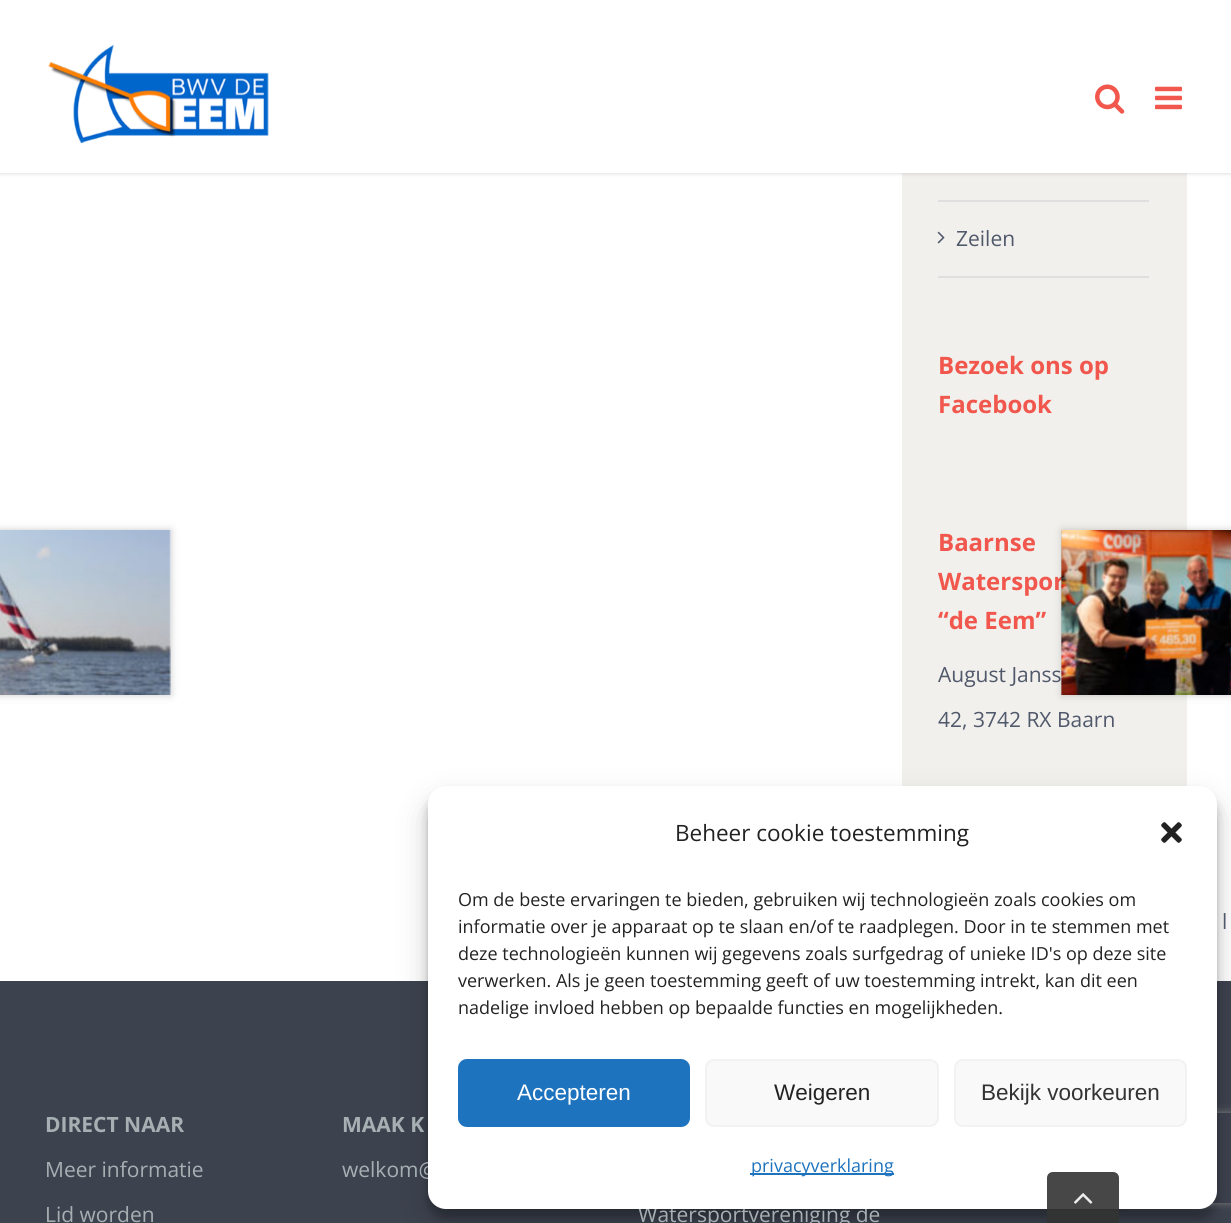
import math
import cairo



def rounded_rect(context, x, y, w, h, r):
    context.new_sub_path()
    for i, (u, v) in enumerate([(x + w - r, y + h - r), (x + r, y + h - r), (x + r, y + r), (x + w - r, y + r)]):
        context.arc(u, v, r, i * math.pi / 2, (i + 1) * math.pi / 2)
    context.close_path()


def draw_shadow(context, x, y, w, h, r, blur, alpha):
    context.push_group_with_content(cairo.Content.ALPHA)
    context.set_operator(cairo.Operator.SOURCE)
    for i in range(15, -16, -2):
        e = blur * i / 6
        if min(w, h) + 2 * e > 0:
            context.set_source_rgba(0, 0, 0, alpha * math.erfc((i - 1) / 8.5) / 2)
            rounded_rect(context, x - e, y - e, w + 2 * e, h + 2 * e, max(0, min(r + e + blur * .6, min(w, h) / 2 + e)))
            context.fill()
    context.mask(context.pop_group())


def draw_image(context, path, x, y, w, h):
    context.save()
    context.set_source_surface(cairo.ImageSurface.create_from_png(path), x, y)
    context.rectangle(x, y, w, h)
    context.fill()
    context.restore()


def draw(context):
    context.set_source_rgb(1, 1, 1)
    context.paint()
    context.set_source_rgb(241 / 255, 240 / 255, 236 / 255)
    context.rectangle(902, 173, 285, 613)
    context.fill()
    context.set_source_rgb(0, 0, 0)
    draw_shadow(context, 0, 2, 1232, 172, 0, 2, 0.12)
    context.set_source_rgb(1, 1, 1)
    context.rectangle(0, 0, 1231, 173)
    context.fill()
    draw_image(context, "images/1.png", 48, 45, 221, 98)
    draw_image(context, "images/2.png", 1095, 84, 30, 30)
    draw_image(context, "images/3.png", 1155, 86, 27, 24)
    context.set_source_rgb(224 / 255, 222 / 255, 222 / 255)
    context.rectangle(938, 200, 211, 2)
    context.fill()
    context.rectangle(938, 276, 211, 2)
    context.fill()
    draw_image(context, "images/4.png", 937, 231, 8, 13)
    draw_image(context, "images/5.png", 0, 530, 171, 165)
    context.save()
    context.set_fill_rule(cairo.FillRule.EVEN_ODD)
    context.new_path()
    context.move_to(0, 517)
    context.line_to(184, 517)
    context.line_to(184, 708)
    context.line_to(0, 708)
    context.close_path()
    context.move_to(-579, 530)
    context.line_to(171, 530)
    context.line_to(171, 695)
    context.line_to(-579, 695)
    context.close_path()
    context.clip()
    context.set_source_rgb(0, 0, 0)
    draw_shadow(context, -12, 530, 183, 165, 0, 4, 0.2)
    context.restore()
    context.set_source_rgb(61 / 255, 66 / 255, 79 / 255)
    context.rectangle(0, 981, 1231, 242)
    context.fill()
    context.set_source_rgb(0, 0, 0)
    draw_shadow(context, 428, 795, 789, 423, 18, 4.5, 0.23)
    draw_shadow(context, 428, 801, 789, 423, 18, 15, 0.19)
    context.save()
    context.set_fill_rule(cairo.FillRule.EVEN_ODD)
    context.new_path()
    context.move_to(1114, 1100)
    context.line_to(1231, 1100)
    context.line_to(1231, 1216)
    context.line_to(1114, 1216)
    context.close_path()
    context.move_to(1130, 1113)
    context.line_to(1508, 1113)
    context.curve_to(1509.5, 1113, 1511, 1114.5, 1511, 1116)
    context.line_to(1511, 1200)
    context.curve_to(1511, 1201.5, 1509.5, 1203, 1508, 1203)
    context.line_to(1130, 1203)
    context.curve_to(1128.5, 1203, 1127, 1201.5, 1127, 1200)
    context.line_to(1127, 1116)
    context.curve_to(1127, 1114.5, 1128.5, 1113, 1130, 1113)
    context.close_path()
    context.clip()
    context.set_source_rgb(128 / 255, 128 / 255, 128 / 255)
    draw_shadow(context, 1127, 1113, 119, 90, 3, 4, 1)
    context.restore()
    context.select_font_face("Open Sans")
    context.set_font_size(21)
    context.set_source_rgb(80 / 255, 88 / 255, 107 / 255)
    context.move_to(956, 246)
    context.show_text("Zeilen")
    context.select_font_face("Open Sans", cairo.FontSlant.NORMAL, cairo.FontWeight.BOLD)
    context.set_font_size(24)
    context.set_source_rgb(241 / 255, 87 / 255, 77 / 255)
    context.move_to(938, 374)
    context.show_text("Bezoek ons op")
    context.move_to(938, 413)
    context.show_text("Facebook")
    context.move_to(938, 551)
    context.show_text("Baarnse")
    context.move_to(938, 590)
    context.show_text("Waterspor")
    context.move_to(938, 629)
    context.show_text("“de Eem”")
    context.select_font_face("Open Sans")
    context.set_font_size(21)
    context.set_source_rgb(80 / 255, 88 / 255, 107 / 255)
    context.move_to(938, 682)
    context.show_text("August Janss")
    context.move_to(938, 727)
    context.show_text("42, 3742 RX Baarn")
    context.move_to(1222, 929)
    context.show_text("l")
    draw_image(context, "images/6.png", 1061, 530, 170, 165)
    context.save()
    context.set_fill_rule(cairo.FillRule.EVEN_ODD)
    context.new_path()
    context.move_to(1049, 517)
    context.line_to(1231, 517)
    context.line_to(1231, 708)
    context.line_to(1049, 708)
    context.close_path()
    context.move_to(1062, 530)
    context.line_to(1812, 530)
    context.line_to(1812, 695)
    context.line_to(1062, 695)
    context.close_path()
    context.clip()
    context.set_source_rgb(0, 0, 0)
    draw_shadow(context, 1062, 530, 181, 165, 0, 4, 0.2)
    context.restore()
    context.select_font_face("Open Sans", cairo.FontSlant.NORMAL, cairo.FontWeight.BOLD)
    context.set_source_rgb(166 / 255, 176 / 255, 179 / 255)
    context.move_to(45, 1132)
    context.show_text("DIRECT NAAR")
    context.select_font_face("Open Sans")
    context.move_to(45, 1177)
    context.show_text("Meer informatie")
    context.move_to(45, 1222)
    context.show_text("Lid worden")
    context.select_font_face("Open Sans", cairo.FontSlant.NORMAL, cairo.FontWeight.BOLD)
    context.move_to(342, 1132)
    context.show_text("MAAK K")
    context.select_font_face("Open Sans")
    context.move_to(342, 1177)
    context.show_text("welkom@")
    context.move_to(638, 1222)
    context.show_text("Watersportvereniging de")
    context.set_source_rgb(1, 1, 1)
    rounded_rect(context, 428, 786, 789, 423, 18)
    context.fill()
    context.set_font_size(22.5)
    context.set_source_rgb(34 / 255, 34 / 255, 34 / 255)
    context.move_to(675, 841)
    context.show_text("Beheer cookie toestemming")
    draw_image(context, "images/7.png", 1161, 822, 21, 21)
    context.set_font_size(18)
    context.move_to(458, 906)
    context.show_text("Om de beste ervaringen te bieden, gebruiken wij technologieën zoals cookies om")
    context.move_to(458, 933)
    context.show_text("informatie over je apparaat op te slaan en/of te raadplegen. Door in te stemmen met")
    context.move_to(458, 960)
    context.show_text("deze technologieën kunnen wij gegevens zoals surfgedrag of unieke ID's op deze site")
    context.move_to(458, 987)
    context.show_text("verwerken. Als je geen toestemming geeft of uw toestemming intrekt, kan dit een")
    context.move_to(458, 1014)
    context.show_text("nadelige invloed hebben op bepaalde functies en mogelijkheden.")
    context.set_source_rgb(30 / 255, 115 / 255, 190 / 255)
    rounded_rect(context, 459, 1060, 230, 66, 8)
    context.fill_preserve()
    context.stroke()
    context.select_font_face("Liberation Sans")
    context.set_font_size(22.5)
    context.set_source_rgb(1, 1, 1)
    context.move_to(517, 1100)
    context.show_text("Accepteren")
    context.set_source_rgb(249 / 255, 249 / 255, 249 / 255)
    rounded_rect(context, 706, 1060, 232, 66, 8)
    context.fill_preserve()
    context.set_source_rgb(242 / 255, 242 / 255, 242 / 255)
    context.stroke()
    context.set_source_rgb(34 / 255, 34 / 255, 34 / 255)
    context.move_to(774, 1100)
    context.show_text("Weigeren")
    context.set_source_rgb(249 / 255, 249 / 255, 249 / 255)
    rounded_rect(context, 955, 1060, 231, 66, 8)
    context.fill_preserve()
    context.set_source_rgb(242 / 255, 242 / 255, 242 / 255)
    context.stroke()
    context.set_source_rgb(51 / 255, 51 / 255, 51 / 255)
    context.move_to(981, 1100)
    context.show_text("Bekijk voorkeuren")
    context.set_source_rgb(30 / 255, 115 / 255, 190 / 255)
    context.rectangle(750, 1173, 144, 2)
    context.fill()
    context.select_font_face("Open Sans")
    context.set_font_size(18)
    context.move_to(751, 1172)
    context.show_text("privacyverklaring")
    context.set_source_rgba(51 / 255, 51 / 255, 51 / 255, 0.9)
    context.new_path()
    context.move_to(1053, 1172)
    context.line_to(1113, 1172)
    context.curve_to(1116.5, 1172, 1119, 1174.5, 1119, 1178)
    context.line_to(1119, 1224)
    context.line_to(1047, 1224)
    context.line_to(1047, 1178)
    context.curve_to(1047, 1174.5, 1049.5, 1172, 1053, 1172)
    context.close_path()
    context.fill()
    draw_image(context, "images/8.png", 1074, 1193, 19, 11)


surface = cairo.ImageSurface(cairo.Format.RGB24, 1231, 1223)
context = cairo.Context(surface)
options = cairo.FontOptions()
options.set_hint_metrics(cairo.HintMetrics.OFF)
options.set_hint_style(cairo.HintStyle.NONE)
context.set_font_options(options)
context.set_miter_limit(4)
draw(context)
surface.write_to_png("out.png")
